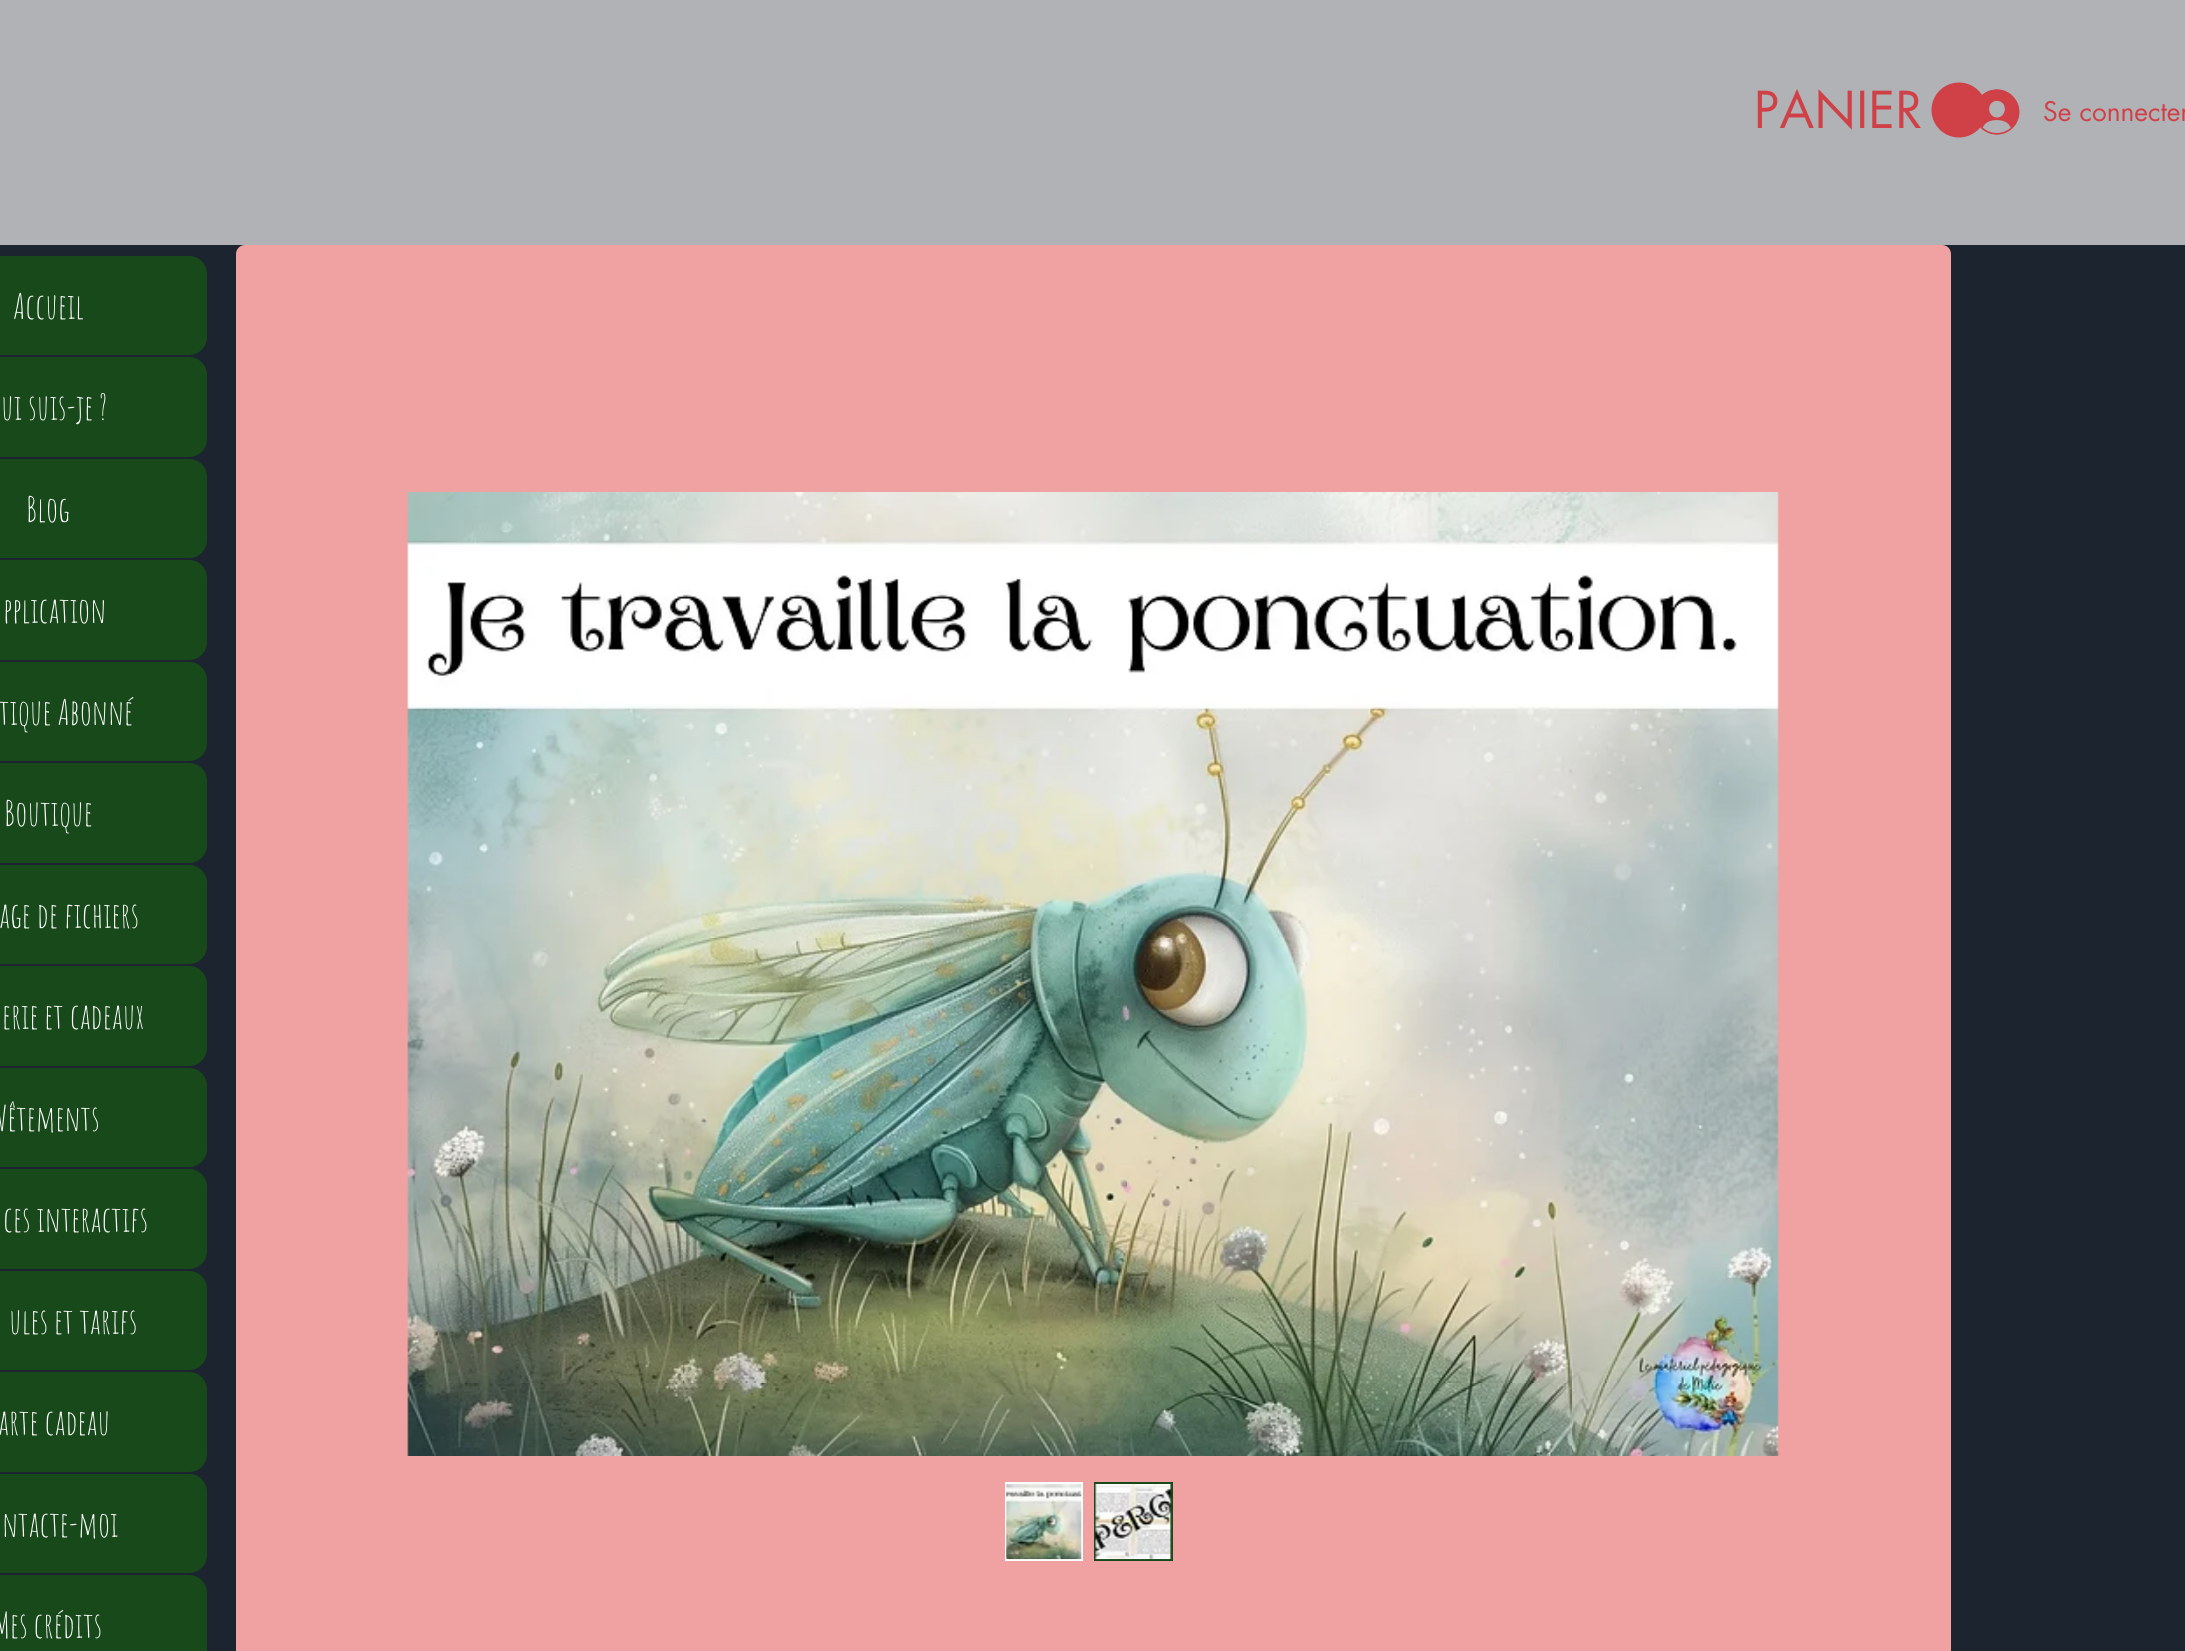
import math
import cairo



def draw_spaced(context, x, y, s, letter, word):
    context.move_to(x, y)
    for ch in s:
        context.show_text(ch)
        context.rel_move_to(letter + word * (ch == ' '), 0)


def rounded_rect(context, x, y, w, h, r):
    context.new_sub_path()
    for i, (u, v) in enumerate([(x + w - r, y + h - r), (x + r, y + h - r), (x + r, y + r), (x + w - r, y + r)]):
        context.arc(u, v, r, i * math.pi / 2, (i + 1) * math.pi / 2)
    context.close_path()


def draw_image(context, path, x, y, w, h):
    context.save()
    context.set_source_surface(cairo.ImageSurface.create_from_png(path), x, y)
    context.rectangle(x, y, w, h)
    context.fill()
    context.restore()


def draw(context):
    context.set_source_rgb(28 / 255, 36 / 255, 47 / 255)
    context.paint()
    context.set_source_rgb(176 / 255, 178 / 255, 182 / 255)
    context.rectangle(0, 0, 2185, 245)
    context.fill()
    context.set_source_rgb(207 / 255, 65 / 255, 71 / 255)
    context.arc(1959, 110, 27.5, 0, 2 * math.pi)
    context.fill()
    draw_image(context, "images/1.png", 1980, 89, 40, 46)
    context.set_source_rgb(24 / 255, 73 / 255, 26 / 255)
    rounded_rect(context, -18, 256, 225, 99, 18)
    context.fill()
    rounded_rect(context, -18, 357, 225, 100, 18)
    context.fill()
    rounded_rect(context, -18, 459, 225, 99, 18)
    context.fill()
    rounded_rect(context, -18, 560, 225, 100, 18)
    context.fill()
    rounded_rect(context, -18, 662, 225, 99, 18)
    context.fill()
    rounded_rect(context, -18, 763, 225, 100, 18)
    context.fill()
    rounded_rect(context, -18, 865, 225, 99, 18)
    context.fill()
    rounded_rect(context, -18, 966, 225, 100, 18)
    context.fill()
    rounded_rect(context, -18, 1068, 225, 99, 18)
    context.fill()
    rounded_rect(context, -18, 1169, 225, 100, 18)
    context.fill()
    rounded_rect(context, -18, 1271, 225, 99, 18)
    context.fill()
    rounded_rect(context, -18, 1372, 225, 100, 18)
    context.fill()
    rounded_rect(context, -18, 1474, 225, 99, 18)
    context.fill()
    rounded_rect(context, -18, 1575, 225, 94, 18)
    context.fill()
    context.set_source_rgb(240 / 255, 161 / 255, 161 / 255)
    rounded_rect(context, 237, 246, 1713, 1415, 8)
    context.fill_preserve()
    context.stroke()
    draw_image(context, "images/2.png", 407, 492, 1372, 964)
    context.rectangle(1006, 1483, 76, 77)
    context.set_source_rgb(1, 1, 1)
    context.stroke()
    draw_image(context, "images/3.png", 1006, 1484, 76, 76)
    context.set_source_rgb(24 / 255, 73 / 255, 26 / 255)
    context.rectangle(1094, 1482, 79, 79)
    context.fill()
    draw_image(context, "images/4.png", 1095, 1484, 77, 76)
    context.select_font_face("futura")
    context.set_font_size(49.5)
    context.set_source_rgb(207 / 255, 65 / 255, 71 / 255)
    draw_spaced(context, 1754, 128, "PANIER", 0.5, 0)
    context.set_font_size(26.25)
    context.move_to(2043, 121)
    context.show_text("Se connecter")
    context.select_font_face("Amatic SC")
    context.set_font_size(35)
    context.set_source_rgb(1, 1, 1)
    context.move_to(13, 319)
    context.show_text("Accueil")
    context.move_to(1, 420)
    context.show_text("ui suis-je ?")
    context.move_to(26, 522)
    context.show_text("Blog")
    context.move_to(3, 623)
    context.show_text("pplication")
    context.move_to(-1, 725)
    context.show_text("tique Abonné")
    context.move_to(4, 826)
    context.show_text("Boutique")
    context.move_to(-1, 928)
    context.show_text("age de fichiers")
    context.move_to(2, 1029)
    context.show_text("erie et cadeaux")
    context.move_to(-4, 1131)
    context.show_text("Vêtements")
    context.move_to(3, 1232)
    context.show_text("ces interactifs")
    context.move_to(9, 1334)
    context.show_text("ules et tarifs")
    context.move_to(-2, 1435)
    context.show_text("arte cadeau")
    context.move_to(2, 1537)
    context.show_text("ntacte-moi")
    context.move_to(-6, 1638)
    context.show_text("Mes crédits")


surface = cairo.ImageSurface(cairo.Format.RGB24, 2185, 1651)
context = cairo.Context(surface)
options = cairo.FontOptions()
options.set_hint_metrics(cairo.HintMetrics.OFF)
options.set_hint_style(cairo.HintStyle.NONE)
context.set_font_options(options)
context.set_miter_limit(4)
draw(context)
surface.write_to_png("out.png")
